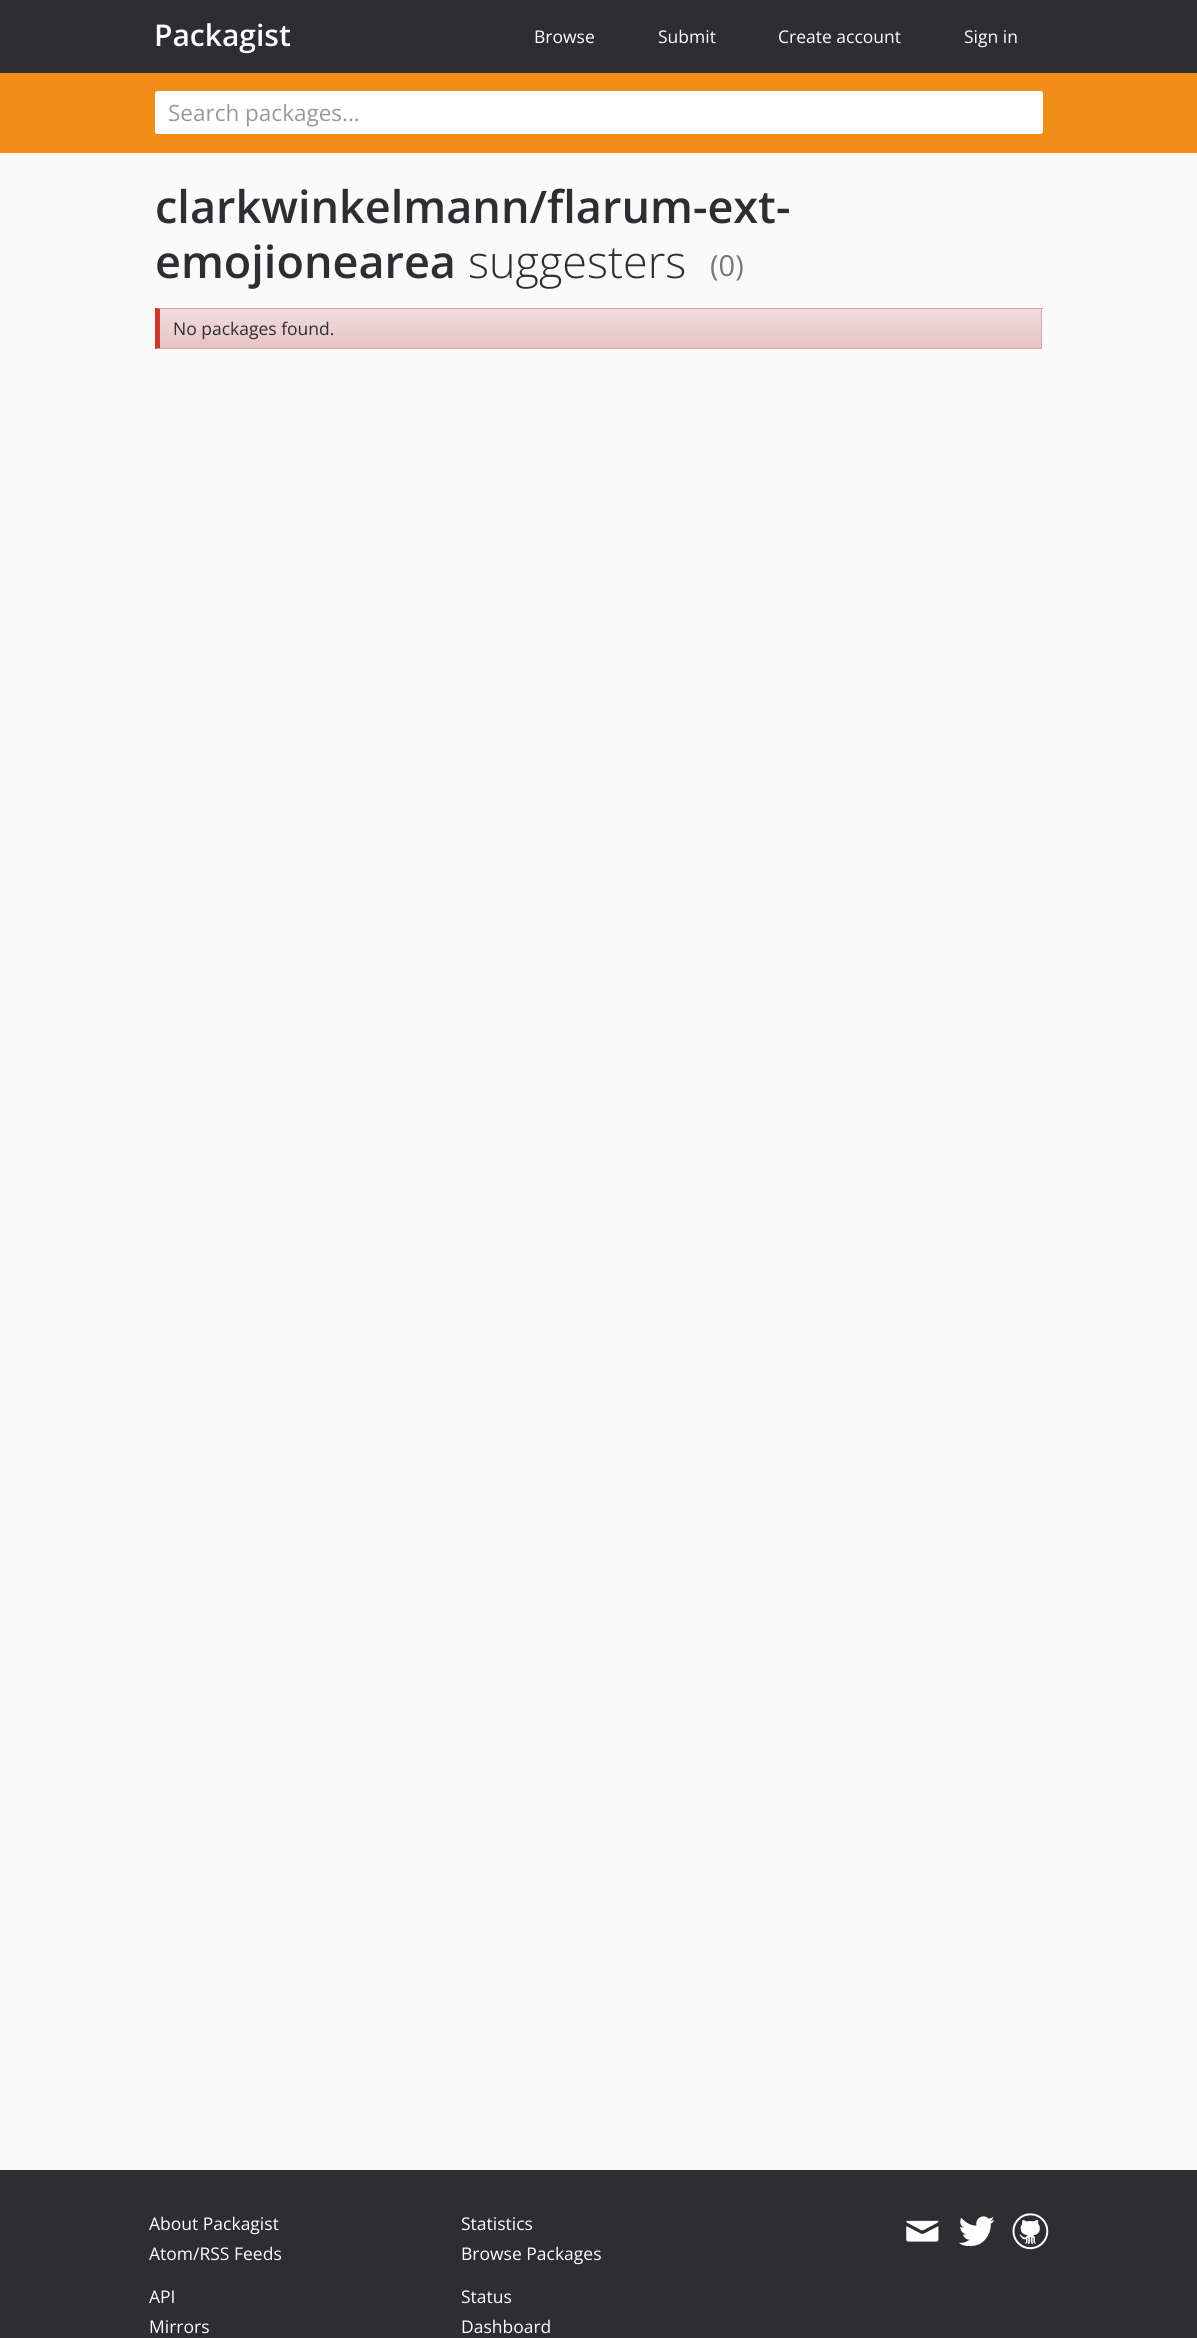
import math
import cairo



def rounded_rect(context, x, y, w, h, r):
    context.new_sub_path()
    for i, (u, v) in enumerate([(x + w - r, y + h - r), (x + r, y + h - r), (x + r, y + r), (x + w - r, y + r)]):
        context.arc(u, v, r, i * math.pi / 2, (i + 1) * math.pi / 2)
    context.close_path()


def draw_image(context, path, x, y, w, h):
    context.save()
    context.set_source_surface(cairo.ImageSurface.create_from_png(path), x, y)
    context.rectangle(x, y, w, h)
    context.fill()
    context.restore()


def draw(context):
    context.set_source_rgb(250 / 255, 250 / 255, 250 / 255)
    context.paint()
    context.set_source_rgb(45 / 255, 45 / 255, 50 / 255)
    context.rectangle(0, 0, 1197, 73)
    context.fill()
    context.set_source_rgb(242 / 255, 141 / 255, 26 / 255)
    context.rectangle(0, 73, 1197, 80)
    context.fill()
    context.set_source_rgb(1, 1, 1)
    rounded_rect(context, 155, 91, 888, 43, 2.5)
    context.fill()
    context.set_source_rgb(242 / 255, 141 / 255, 26 / 255)
    context.rectangle(155, 308, 888, 1)
    context.fill()
    gradient = cairo.LinearGradient(601, 309, 601, 348)
    gradient.add_color_stop_rgba(0, 242 / 255, 222 / 255, 222 / 255, 1)
    gradient.add_color_stop_rgba(1, 231 / 255, 195 / 255, 195 / 255, 1)
    context.set_source(gradient)
    context.rectangle(160, 309, 881, 39)
    context.fill()
    context.set_source_rgb(220 / 255, 167 / 255, 167 / 255)
    context.new_path()
    context.move_to(155, 308)
    context.line_to(1042, 308)
    context.line_to(1041, 309)
    context.line_to(160, 309)
    context.close_path()
    context.fill()
    context.rectangle(1041, 308, 1, 41)
    context.fill()
    context.new_path()
    context.move_to(1042, 349)
    context.line_to(155, 349)
    context.line_to(160, 348)
    context.line_to(1041, 348)
    context.close_path()
    context.fill()
    context.set_source_rgb(205 / 255, 55 / 255, 41 / 255)
    context.new_path()
    context.move_to(155, 349)
    context.line_to(155, 308)
    context.line_to(160, 309)
    context.line_to(160, 348)
    context.close_path()
    context.fill()
    context.set_source_rgb(45 / 255, 45 / 255, 50 / 255)
    context.rectangle(0, 2170, 1197, 168)
    context.fill()
    draw_image(context, "images/1.png", 906, 2220, 33, 22)
    draw_image(context, "images/2.png", 958, 2216, 37, 31)
    draw_image(context, "images/3.png", 1012, 2213, 37, 37)
    context.select_font_face("Open Sans SemiBold")
    context.set_font_size(30)
    context.set_source_rgb(1, 1, 1)
    context.move_to(154, 46)
    context.show_text("Packagist")
    context.select_font_face("Open Sans")
    context.set_font_size(17.5)
    context.move_to(534, 43)
    context.show_text("Browse")
    context.move_to(658, 43)
    context.show_text("Submit")
    context.move_to(778, 43)
    context.show_text("Create account")
    context.move_to(964, 43)
    context.show_text("Sign in")
    context.set_font_size(22.5)
    context.set_source_rgb(153 / 255, 153 / 255, 153 / 255)
    context.move_to(168, 121)
    context.show_text("Search packages...")
    context.select_font_face("Open Sans SemiBold")
    context.set_font_size(45)
    context.set_source_rgb(45 / 255, 45 / 255, 50 / 255)
    context.move_to(155, 223)
    context.show_text("clarkwinkelmann/flarum-ext-")
    context.move_to(155, 278)
    context.show_text("emojionearea")
    context.select_font_face("Open Sans Light")
    context.move_to(468, 278)
    context.show_text("suggesters")
    context.select_font_face("Open Sans")
    context.set_font_size(29)
    context.set_source_rgb(119 / 255, 119 / 255, 119 / 255)
    context.move_to(710, 276)
    context.show_text("(0)")
    context.set_font_size(17.5)
    context.set_source_rgb(45 / 255, 45 / 255, 50 / 255)
    context.move_to(173, 335)
    context.show_text("No packages found.")
    context.set_source_rgb(1, 1, 1)
    context.move_to(149, 2230)
    context.show_text("About Packagist")
    context.move_to(149, 2260)
    context.show_text("Atom/RSS Feeds")
    context.move_to(461, 2230)
    context.show_text("Statistics")
    context.move_to(461, 2260)
    context.show_text("Browse Packages")
    context.move_to(149, 2303)
    context.show_text("API")
    context.move_to(149, 2333)
    context.show_text("Mirrors")
    context.move_to(461, 2303)
    context.show_text("Status")
    context.move_to(461, 2333)
    context.show_text("Dashboard")


surface = cairo.ImageSurface(cairo.Format.RGB24, 1197, 2338)
context = cairo.Context(surface)
options = cairo.FontOptions()
options.set_hint_metrics(cairo.HintMetrics.OFF)
options.set_hint_style(cairo.HintStyle.NONE)
context.set_font_options(options)
context.set_miter_limit(4)
draw(context)
surface.write_to_png("out.png")
